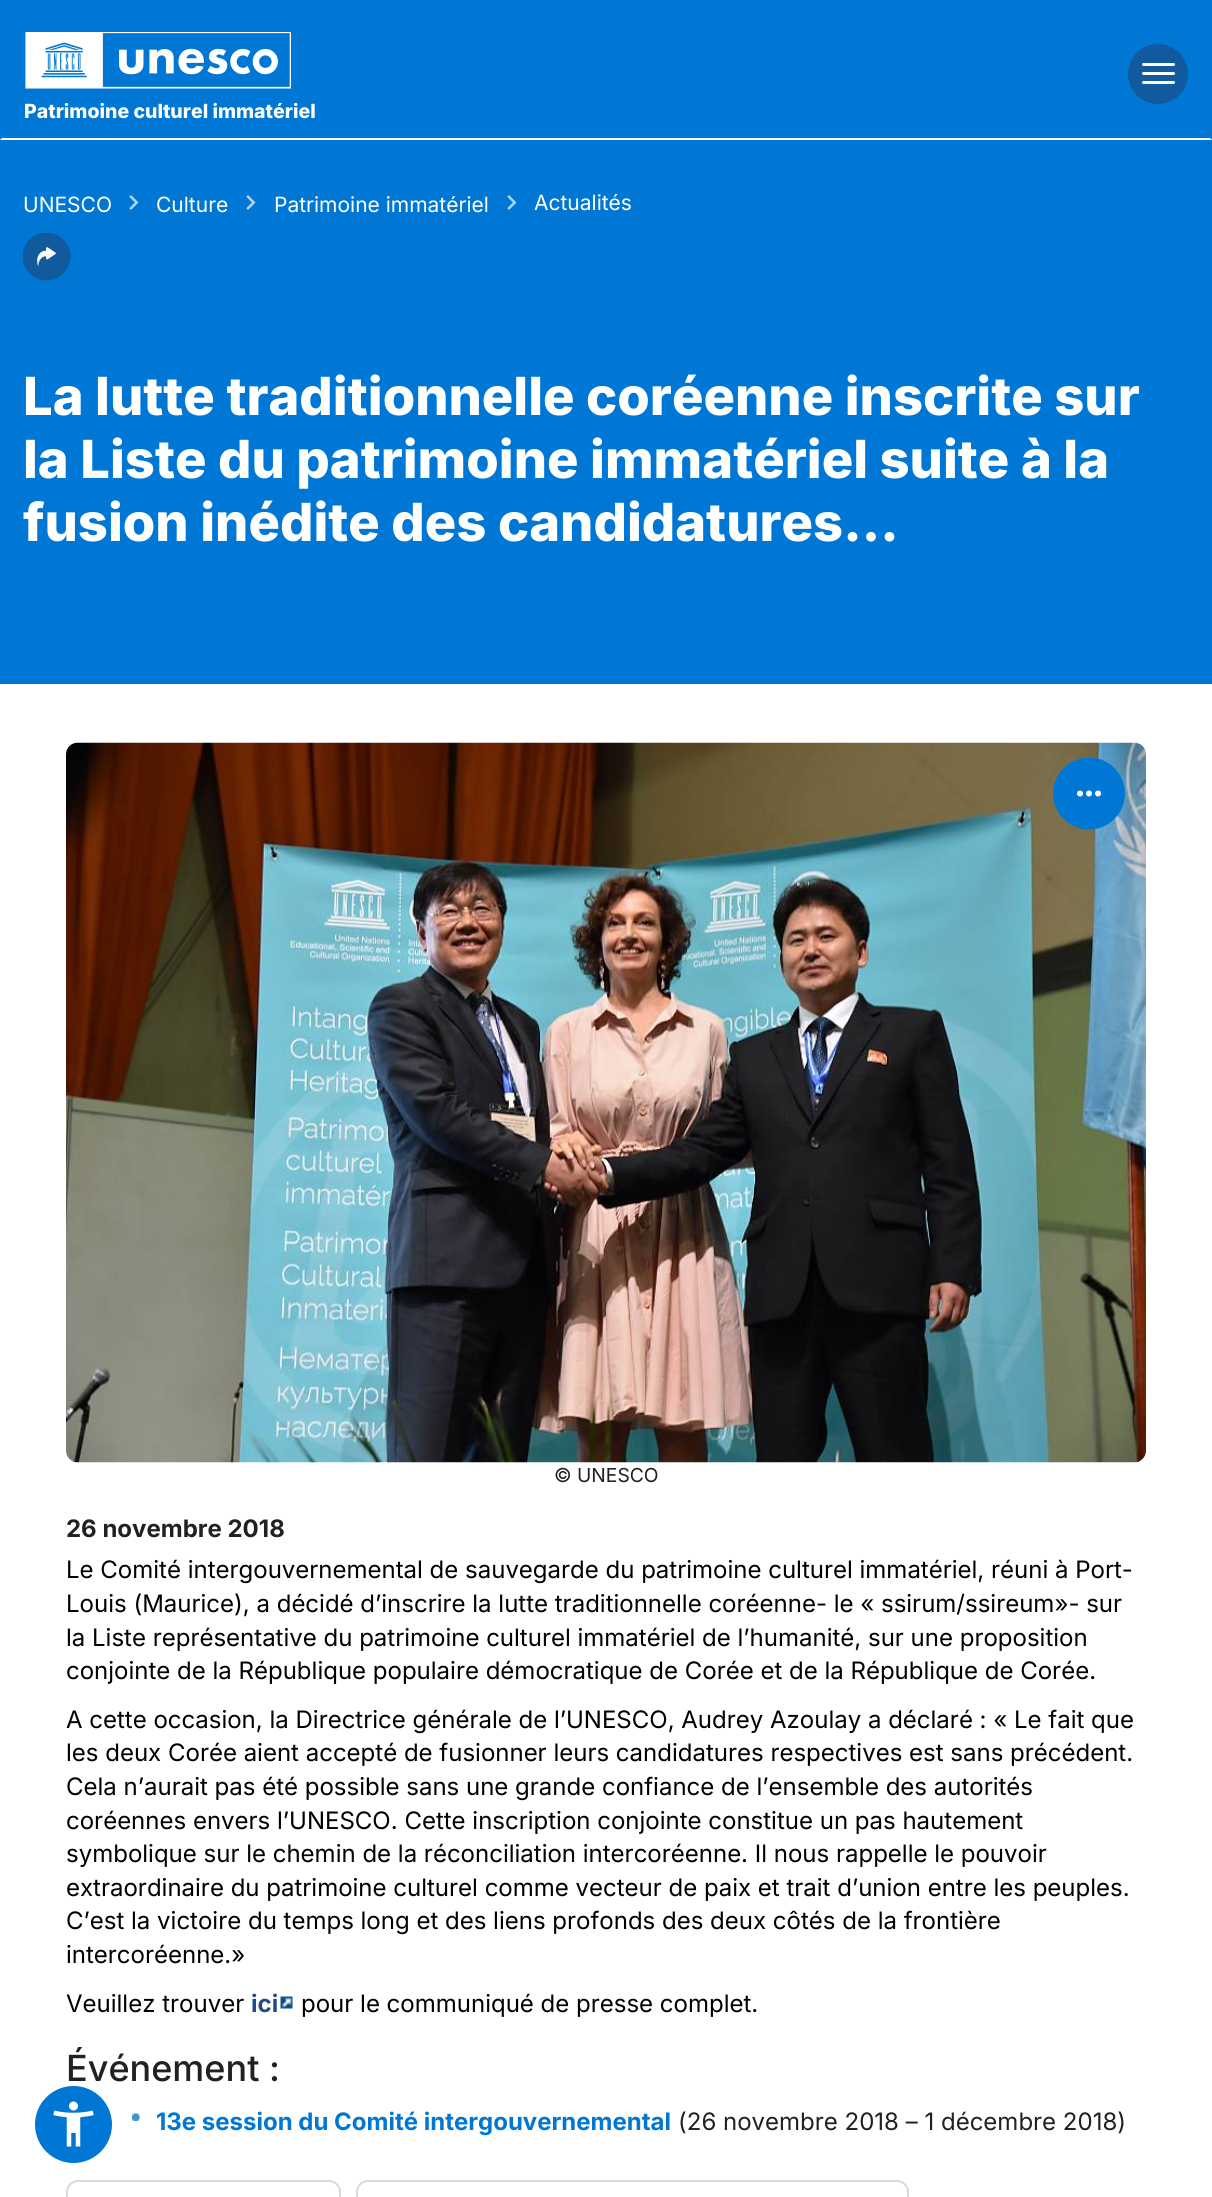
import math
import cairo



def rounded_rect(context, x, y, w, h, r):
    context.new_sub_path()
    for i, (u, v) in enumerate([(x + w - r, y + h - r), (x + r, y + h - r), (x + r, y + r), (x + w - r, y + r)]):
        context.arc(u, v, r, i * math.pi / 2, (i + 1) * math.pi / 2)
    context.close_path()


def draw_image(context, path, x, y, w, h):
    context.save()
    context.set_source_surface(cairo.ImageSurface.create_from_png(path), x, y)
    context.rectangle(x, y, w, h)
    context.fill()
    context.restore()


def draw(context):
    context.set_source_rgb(1, 1, 1)
    context.paint()
    context.set_source_rgb(0, 119 / 255, 212 / 255)
    context.rectangle(0, 0, 1212, 684)
    context.fill()
    context.set_source_rgb(1, 1, 1)
    context.new_path()
    context.move_to(1212, 140)
    context.line_to(0, 140)
    context.line_to(2, 138)
    context.line_to(1210, 138)
    context.close_path()
    context.fill()
    context.set_source_rgb(17 / 255, 90 / 255, 158 / 255)
    context.arc(1158, 74, 30, 0, 2 * math.pi)
    context.fill()
    context.set_source_rgb(1, 1, 1)
    rounded_rect(context, 1142, 63, 33, 3, 1.5)
    context.fill()
    rounded_rect(context, 1142, 72, 33, 3, 1.5)
    context.fill()
    rounded_rect(context, 1142, 81, 33, 3, 1.5)
    context.fill()
    draw_image(context, "images/1.png", 25, 32, 266, 57)
    draw_image(context, "images/2.png", 129, 195, 10, 15)
    draw_image(context, "images/2.png", 246, 195, 10, 15)
    draw_image(context, "images/2.png", 507, 195, 10, 15)
    draw_image(context, "images/3.png", 23, 233, 48, 48)
    draw_image(context, "images/4.png", 66, 742, 1080, 721)
    context.save()
    context.rectangle(1053, 758, 72, 72)
    context.clip()
    context.set_source_rgb(0, 119 / 255, 212 / 255)
    context.arc(1089, 793.5, 36, 0, 2 * math.pi)
    context.fill()
    context.restore()
    context.new_path()
    context.move_to(1080, 790.5)
    context.curve_to(1076, 790.5, 1076, 796.5, 1080, 796.5)
    context.curve_to(1084, 796.5, 1084, 790.5, 1080, 790.5)
    context.close_path()
    context.move_to(1098, 790.5)
    context.curve_to(1094, 790.5, 1094, 796.5, 1098, 796.5)
    context.curve_to(1102, 796.5, 1102, 790.5, 1098, 790.5)
    context.close_path()
    context.move_to(1089, 790.5)
    context.curve_to(1085, 790.5, 1085, 796.5, 1089, 796.5)
    context.curve_to(1093, 796.5, 1093, 790.5, 1089, 790.5)
    context.close_path()
    context.fill()
    draw_image(context, "images/5.png", 280, 1996, 13, 13)
    draw_image(context, "images/6.png", 132, 2113, 8, 8)
    rounded_rect(context, 67, 2181, 273, 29, 11)
    context.set_source_rgb(213 / 255, 218 / 255, 221 / 255)
    context.stroke()
    rounded_rect(context, 357, 2181, 551, 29, 11)
    context.stroke()
    context.select_font_face("Inter ExtraBold")
    context.set_font_size(19.5)
    context.set_source_rgb(1, 1, 1)
    context.move_to(24, 118)
    context.show_text("Patrimoine culturel immatériel")
    context.select_font_face("Inter")
    context.set_font_size(21)
    context.move_to(23, 212)
    context.show_text("UNESCO")
    context.move_to(156, 212)
    context.show_text("Culture")
    context.move_to(274, 212)
    context.show_text("Patrimoine immatériel")
    context.move_to(534, 210)
    context.show_text("Actualités")
    context.select_font_face("Inter ExtraBold")
    context.set_font_size(52.5)
    context.move_to(23, 415)
    context.show_text("La lutte traditionnelle coréenne inscrite sur")
    context.move_to(23, 478)
    context.show_text("la Liste du patrimoine immatériel suite à la")
    context.move_to(23, 541)
    context.show_text("fusion inédite des candidatures...")
    context.select_font_face("Inter")
    context.set_font_size(19.25)
    context.set_source_rgb(33 / 255, 33 / 255, 33 / 255)
    context.move_to(554, 1482)
    context.show_text("© UNESCO")
    context.select_font_face("Inter", cairo.FontSlant.NORMAL, cairo.FontWeight.BOLD)
    context.set_font_size(24)
    context.move_to(66, 1537)
    context.show_text("26 novembre 2018")
    context.select_font_face("Inter")
    context.set_source_rgb(0, 0, 0)
    context.move_to(66, 1578)
    context.show_text("Le Comité intergouvernemental de sauvegarde du patrimoine culturel immatériel, réuni à Port-")
    context.move_to(66, 1612)
    context.show_text("Louis (Maurice), a décidé d’inscrire la lutte traditionnelle coréenne- le « ssirum/ssireum»- sur")
    context.move_to(66, 1646)
    context.show_text("la Liste représentative du patrimoine culturel immatériel de l’humanité, sur une proposition")
    context.move_to(66, 1679)
    context.show_text("conjointe de la République populaire démocratique de Corée et de la République de Corée.")
    context.move_to(66, 1728)
    context.show_text("A cette occasion, la Directrice générale de l’UNESCO, Audrey Azoulay a déclaré : « Le fait que")
    context.move_to(66, 1761)
    context.show_text("les deux Corée aient accepté de fusionner leurs candidatures respectives est sans précédent.")
    context.move_to(66, 1795)
    context.show_text("Cela n’aurait pas été possible sans une grande confiance de l’ensemble des autorités")
    context.move_to(66, 1829)
    context.show_text("coréennes envers l’UNESCO. Cette inscription conjointe constitue un pas hautement")
    context.move_to(66, 1862)
    context.show_text("symbolique sur le chemin de la réconciliation intercoréenne. Il nous rappelle le pouvoir")
    context.move_to(66, 1896)
    context.show_text("extraordinaire du patrimoine culturel comme vecteur de paix et trait d’union entre les peuples.")
    context.move_to(66, 1929)
    context.show_text("C’est la victoire du temps long et des liens profonds des deux côtés de la frontière")
    context.move_to(66, 1963)
    context.show_text("intercoréenne.»")
    context.move_to(66, 2012)
    context.show_text("Veuillez trouver")
    context.select_font_face("Inter", cairo.FontSlant.NORMAL, cairo.FontWeight.BOLD)
    context.set_source_rgb(33 / 255, 74 / 255, 135 / 255)
    context.move_to(251, 2012)
    context.show_text("ici")
    context.select_font_face("Inter")
    context.set_source_rgb(0, 0, 0)
    context.move_to(301, 2012)
    context.show_text("pour le communiqué de presse complet.")
    context.select_font_face("Inter Medium")
    context.set_font_size(36)
    context.set_source_rgb(33 / 255, 33 / 255, 33 / 255)
    context.move_to(66, 2081)
    context.show_text("Événement :")
    context.select_font_face("Inter", cairo.FontSlant.NORMAL, cairo.FontWeight.BOLD)
    context.set_font_size(24)
    context.set_source_rgb(0, 119 / 255, 212 / 255)
    context.move_to(156, 2130)
    context.show_text("13e session du Comité intergouvernemental")
    context.select_font_face("Inter")
    context.set_source_rgb(33 / 255, 33 / 255, 33 / 255)
    context.move_to(678, 2130)
    context.show_text("(26 novembre 2018 – 1 décembre 2018)")
    context.set_source_rgb(0, 119 / 255, 212 / 255)
    context.new_path()
    context.arc(73.5, 2124.5, 41, 0, 2 * math.pi)
    context.fill_preserve()
    context.set_source_rgb(1, 1, 1)
    context.set_line_width(5)
    context.stroke()
    draw_image(context, "images/7.png", 53, 2101, 41, 46)


surface = cairo.ImageSurface(cairo.Format.RGB24, 1212, 2197)
context = cairo.Context(surface)
options = cairo.FontOptions()
options.set_hint_metrics(cairo.HintMetrics.OFF)
options.set_hint_style(cairo.HintStyle.NONE)
context.set_font_options(options)
context.set_miter_limit(4)
draw(context)
surface.write_to_png("out.png")
